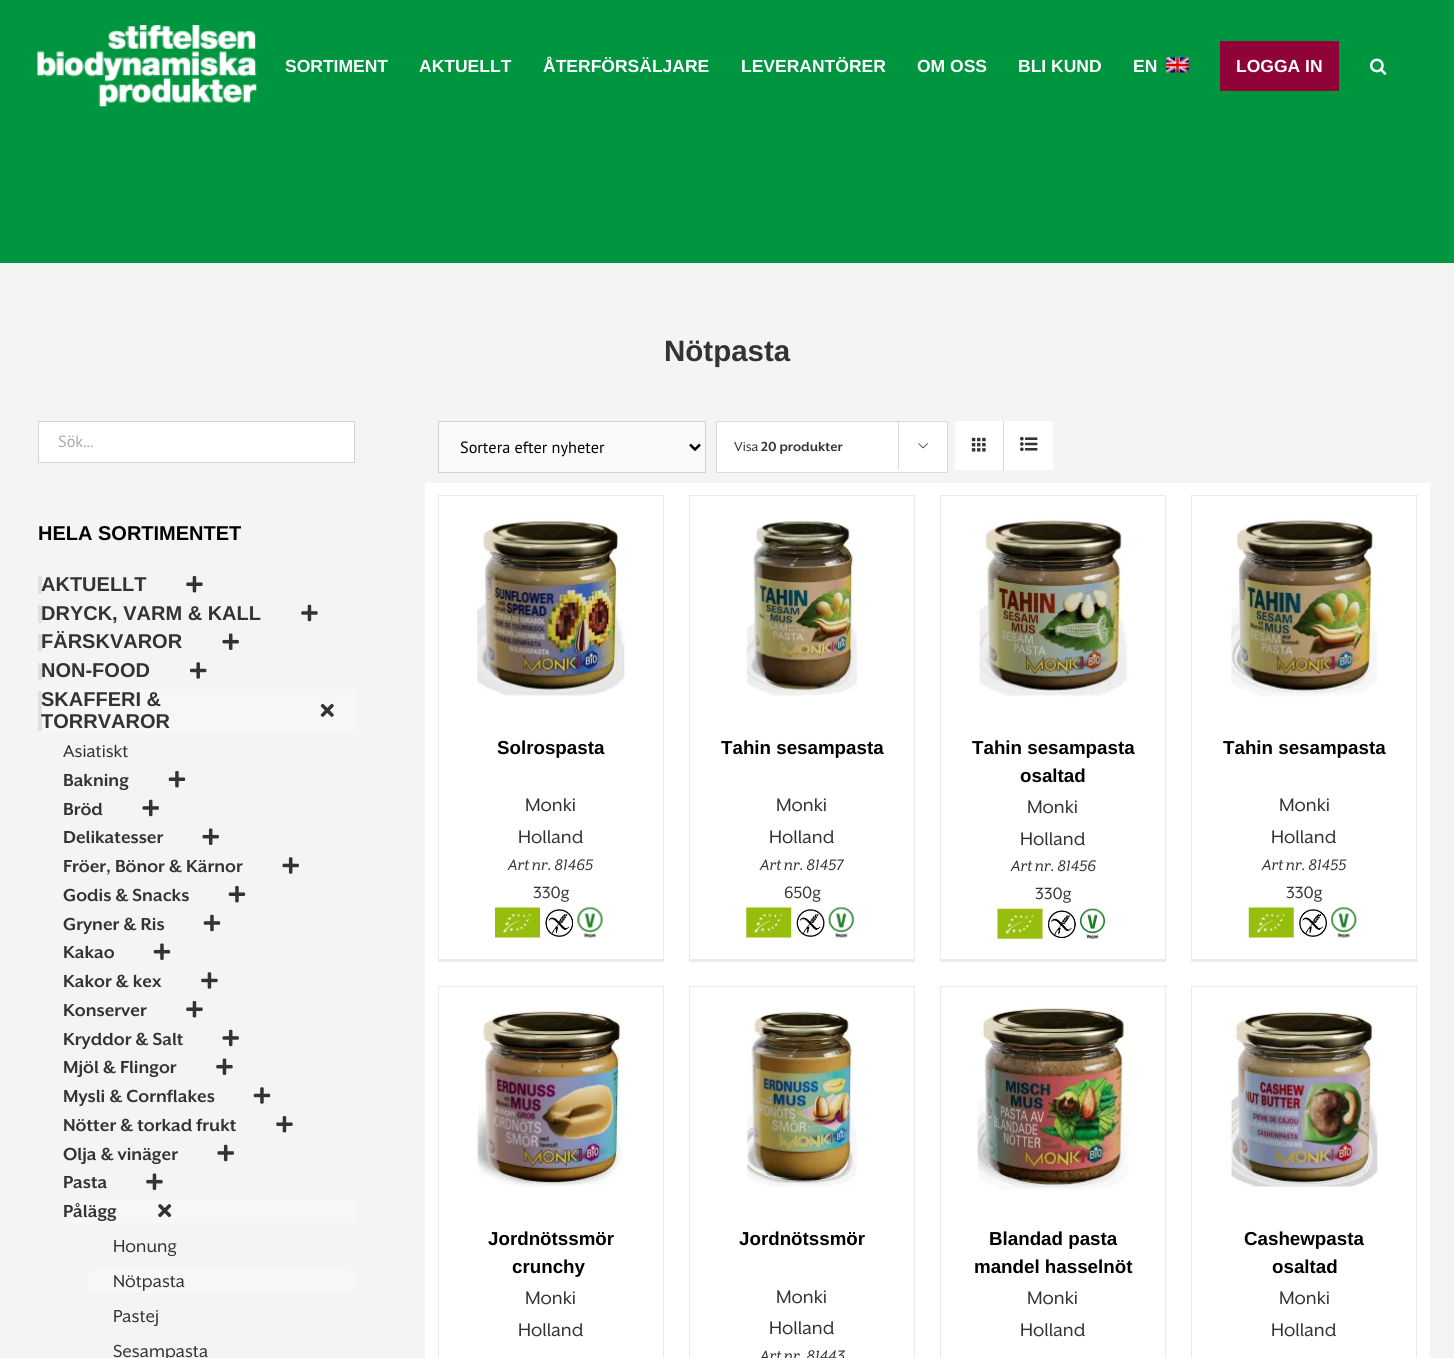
import math
import cairo



def rounded_rect(context, x, y, w, h, r):
    context.new_sub_path()
    for i, (u, v) in enumerate([(x + w - r, y + h - r), (x + r, y + h - r), (x + r, y + r), (x + w - r, y + r)]):
        context.arc(u, v, r, i * math.pi / 2, (i + 1) * math.pi / 2)
    context.close_path()


def draw_image(context, path, x, y, w, h):
    context.save()
    context.set_source_surface(cairo.ImageSurface.create_from_png(path), x, y)
    context.rectangle(x, y, w, h)
    context.fill()
    context.restore()


def draw(context):
    context.set_source_rgb(244 / 255, 244 / 255, 242 / 255)
    context.paint()
    context.set_source_rgb(0, 150 / 255, 64 / 255)
    context.rectangle(0, 0, 1454, 263)
    context.fill()
    draw_image(context, "images/1.png", 37, 25, 220, 82)
    draw_image(context, "images/2.png", 1166, 57, 23, 16)
    context.set_source_rgb(143 / 255, 3 / 255, 57 / 255)
    context.rectangle(1220, 41, 119, 50)
    context.fill()
    draw_image(context, "images/3.png", 1370, 58, 17, 17)
    context.set_source_rgb(1, 1, 1)
    context.rectangle(38.5, 421.5, 316, 41)
    context.fill_preserve()
    context.set_source_rgb(210 / 255, 210 / 255, 210 / 255)
    context.set_line_width(1)
    context.stroke()
    context.set_source_rgb(224 / 255, 222 / 255, 222 / 255)
    context.rectangle(38, 576, 4, 18)
    context.fill()
    draw_image(context, "images/4.png", 186, 576, 17, 17)
    context.rectangle(38, 605, 4, 18)
    context.fill()
    draw_image(context, "images/5.png", 301, 604, 17, 18)
    context.rectangle(38, 634, 4, 17)
    context.fill()
    draw_image(context, "images/6.png", 222, 633, 17, 17)
    context.rectangle(38, 663, 4, 17)
    context.fill()
    draw_image(context, "images/7.png", 190, 662, 17, 17)
    context.set_source_rgb(245 / 255, 247 / 255, 248 / 255)
    rounded_rect(context, 38, 689, 317, 45, 5)
    context.fill()
    context.set_source_rgb(224 / 255, 222 / 255, 222 / 255)
    context.rectangle(38, 691, 4, 40)
    context.fill()
    draw_image(context, "images/8.png", 320, 703, 14, 14)
    draw_image(context, "images/9.png", 168, 771, 18, 17)
    draw_image(context, "images/10.png", 142, 799, 17, 18)
    draw_image(context, "images/6.png", 202, 828, 17, 17)
    draw_image(context, "images/11.png", 282, 857, 17, 17)
    draw_image(context, "images/9.png", 228, 886, 18, 17)
    draw_image(context, "images/12.png", 203, 914, 18, 18)
    draw_image(context, "images/13.png", 153, 943, 18, 17)
    draw_image(context, "images/14.png", 201, 972, 17, 17)
    draw_image(context, "images/4.png", 186, 1001, 17, 17)
    draw_image(context, "images/10.png", 222, 1029, 17, 18)
    draw_image(context, "images/15.png", 216, 1058, 17, 17)
    draw_image(context, "images/16.png", 253, 1087, 18, 17)
    draw_image(context, "images/4.png", 276, 1116, 17, 17)
    draw_image(context, "images/10.png", 217, 1144, 17, 18)
    draw_image(context, "images/15.png", 146, 1173, 17, 17)
    context.set_source_rgb(245 / 255, 247 / 255, 248 / 255)
    rounded_rect(context, 63, 1200, 292, 23, 5)
    context.fill()
    draw_image(context, "images/17.png", 158, 1204, 14, 14)
    rounded_rect(context, 88, 1270, 267, 23, 5)
    context.fill()
    context.set_source_rgb(251 / 255, 250 / 255, 249 / 255)
    context.rectangle(438.5, 421.5, 267, 51)
    context.fill_preserve()
    context.set_source_rgb(210 / 255, 210 / 255, 210 / 255)
    context.stroke()
    context.new_path()
    context.move_to(690, 444.5)
    context.line_to(695, 449.5)
    context.line_to(700, 444.5)
    context.set_source_rgb(0, 0, 0)
    context.set_line_width(2.5)
    context.stroke()
    context.set_source_rgb(1, 1, 1)
    context.rectangle(716.5, 421.5, 231, 51)
    context.fill_preserve()
    context.set_source_rgb(219 / 255, 219 / 255, 219 / 255)
    context.set_line_width(1)
    context.stroke()
    context.rectangle(898, 421, 1, 49)
    context.fill()
    draw_image(context, "images/18.png", 918, 443, 10, 6)
    context.set_source_rgb(1, 1, 1)
    context.rectangle(955, 421, 48, 49)
    context.fill()
    context.set_source_rgb(219 / 255, 219 / 255, 219 / 255)
    context.rectangle(1003, 421, 1, 49)
    context.fill()
    draw_image(context, "images/19.png", 971, 437, 15, 15)
    context.set_source_rgb(1, 1, 1)
    context.rectangle(1004, 421, 49, 49)
    context.fill()
    draw_image(context, "images/20.png", 1020, 436, 18, 16)
    context.rectangle(425, 483, 1005, 491)
    context.fill()
    context.set_source_rgb(235 / 255, 234 / 255, 234 / 255)
    context.rectangle(438, 495, 226, 1)
    context.fill()
    context.rectangle(663, 495, 1, 466)
    context.fill()
    context.rectangle(438, 959, 226, 3)
    context.fill()
    context.rectangle(438, 495, 1, 466)
    context.fill()
    draw_image(context, "images/21.png", 477, 517, 149, 179)
    draw_image(context, "images/22.png", 495, 907, 45, 31)
    draw_image(context, "images/23.png", 545, 909, 29, 28)
    draw_image(context, "images/24.png", 577, 907, 26, 31)
    context.rectangle(689, 495, 226, 1)
    context.fill()
    context.rectangle(914, 495, 1, 466)
    context.fill()
    context.rectangle(689, 959, 226, 3)
    context.fill()
    context.rectangle(689, 495, 1, 466)
    context.fill()
    draw_image(context, "images/25.png", 746, 520, 112, 176)
    draw_image(context, "images/26.png", 746, 907, 46, 31)
    draw_image(context, "images/27.png", 796, 909, 29, 28)
    draw_image(context, "images/28.png", 828, 907, 26, 31)
    context.rectangle(940, 495, 226, 1)
    context.fill()
    context.rectangle(1165, 495, 1, 466)
    context.fill()
    context.rectangle(940, 959, 226, 3)
    context.fill()
    context.rectangle(940, 495, 1, 466)
    context.fill()
    draw_image(context, "images/29.png", 979, 517, 149, 180)
    draw_image(context, "images/30.png", 997, 908, 46, 31)
    draw_image(context, "images/31.png", 1048, 910, 28, 28)
    draw_image(context, "images/32.png", 1080, 908, 25, 31)
    context.rectangle(1191, 495, 227, 1)
    context.fill()
    context.rectangle(1416, 495, 1, 466)
    context.fill()
    context.rectangle(1191, 959, 227, 3)
    context.fill()
    context.rectangle(1191, 495, 1, 466)
    context.fill()
    draw_image(context, "images/33.png", 1231, 518, 147, 179)
    draw_image(context, "images/34.png", 1248, 907, 46, 31)
    draw_image(context, "images/35.png", 1299, 909, 29, 28)
    draw_image(context, "images/36.png", 1331, 907, 26, 31)
    context.set_source_rgb(1, 1, 1)
    context.rectangle(425, 974, 1005, 384)
    context.fill()
    context.set_source_rgb(235 / 255, 234 / 255, 234 / 255)
    context.rectangle(438, 986, 226, 1)
    context.fill()
    context.rectangle(663, 986, 1, 372)
    context.fill()
    context.rectangle(438, 986, 1, 372)
    context.fill()
    draw_image(context, "images/37.png", 475, 1011, 148, 176)
    context.rectangle(689, 986, 226, 1)
    context.fill()
    context.rectangle(914, 986, 1, 372)
    context.fill()
    context.rectangle(689, 986, 1, 372)
    context.fill()
    draw_image(context, "images/38.png", 746, 1009, 112, 178)
    context.rectangle(940, 986, 226, 1)
    context.fill()
    context.rectangle(1165, 986, 1, 372)
    context.fill()
    context.rectangle(940, 986, 1, 372)
    context.fill()
    draw_image(context, "images/39.png", 977, 1007, 152, 183)
    context.rectangle(1191, 986, 227, 1)
    context.fill()
    context.rectangle(1416, 986, 1, 372)
    context.fill()
    context.rectangle(1191, 986, 1, 372)
    context.fill()
    draw_image(context, "images/40.png", 1228, 1011, 150, 177)
    context.select_font_face("Liberation Sans", cairo.FontSlant.NORMAL, cairo.FontWeight.BOLD)
    context.set_font_size(17.5)
    context.set_source_rgb(1, 1, 1)
    context.move_to(285, 72)
    context.show_text("SORTIMENT")
    context.move_to(419, 72)
    context.show_text("AKTUELLT")
    context.move_to(543, 72)
    context.show_text("ÅTERFÖRSÄLJARE")
    context.move_to(741, 72)
    context.show_text("LEVERANTÖRER")
    context.move_to(917, 72)
    context.show_text("OM OSS")
    context.move_to(1018, 72)
    context.show_text("BLI KUND")
    context.move_to(1133, 72)
    context.show_text("EN")
    context.move_to(1236, 72)
    context.show_text("LOGGA IN")
    context.set_font_size(29.5)
    context.set_source_rgb(51 / 255, 51 / 255, 51 / 255)
    context.move_to(664, 361)
    context.show_text("Nötpasta")
    context.select_font_face("PT Sans")
    context.set_font_size(16.25)
    context.set_source_rgb(170 / 255, 169 / 255, 169 / 255)
    context.move_to(58, 447)
    context.show_text("Sök...")
    context.select_font_face("Liberation Sans", cairo.FontSlant.NORMAL, cairo.FontWeight.BOLD)
    context.set_font_size(20)
    context.set_source_rgb(0, 0, 0)
    context.move_to(38, 540)
    context.show_text("HELA SORTIMENTET")
    context.set_source_rgb(51 / 255, 51 / 255, 51 / 255)
    context.move_to(41, 591)
    context.show_text("AKTUELLT")
    context.move_to(41, 620)
    context.show_text("DRYCK, VARM & KALL")
    context.move_to(41, 648)
    context.show_text("FÄRSKVAROR")
    context.move_to(41, 677)
    context.show_text("NON-FOOD")
    context.move_to(41, 706)
    context.show_text("SKAFFERI &")
    context.move_to(41, 728)
    context.show_text("TORRVAROR")
    context.select_font_face("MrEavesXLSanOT")
    context.move_to(63, 757)
    context.show_text("Asiatiskt")
    context.select_font_face("MrEavesXLSanOT", cairo.FontSlant.NORMAL, cairo.FontWeight.BOLD)
    context.move_to(63, 786)
    context.show_text("Bakning")
    context.move_to(63, 815)
    context.show_text("Bröd")
    context.move_to(63, 843)
    context.show_text("Delikatesser")
    context.move_to(63, 872)
    context.show_text("Fröer, Bönor & Kärnor")
    context.move_to(63, 901)
    context.show_text("Godis & Snacks")
    context.move_to(63, 930)
    context.show_text("Gryner & Ris")
    context.move_to(63, 958)
    context.show_text("Kakao")
    context.move_to(63, 987)
    context.show_text("Kakor & kex")
    context.move_to(63, 1016)
    context.show_text("Konserver")
    context.move_to(63, 1045)
    context.show_text("Kryddor & Salt")
    context.move_to(63, 1073)
    context.show_text("Mjöl & Flingor")
    context.move_to(63, 1102)
    context.show_text("Mysli & Cornflakes")
    context.move_to(63, 1131)
    context.show_text("Nötter & torkad frukt")
    context.move_to(63, 1160)
    context.show_text("Olja & vinäger")
    context.move_to(63, 1188)
    context.show_text("Pasta")
    context.move_to(63, 1217)
    context.show_text("Pålägg")
    context.select_font_face("MrEavesXLSanOT")
    context.move_to(113, 1252)
    context.show_text("Honung")
    context.move_to(113, 1287)
    context.show_text("Nötpasta")
    context.move_to(113, 1322)
    context.show_text("Pastej")
    context.move_to(113, 1357)
    context.show_text("Sesampasta")
    context.select_font_face("PT Sans")
    context.set_font_size(16.25)
    context.set_source_rgb(0, 0, 0)
    context.move_to(460, 453)
    context.show_text("Sortera efter nyheter")
    context.select_font_face("MrEavesXLSanOT")
    context.set_font_size(15)
    context.set_source_rgb(51 / 255, 51 / 255, 51 / 255)
    context.move_to(734, 451)
    context.show_text("Visa")
    context.select_font_face("MrEavesXLSanOT", cairo.FontSlant.NORMAL, cairo.FontWeight.BOLD)
    context.move_to(761, 451)
    context.show_text("20 produkter")
    context.select_font_face("Liberation Sans", cairo.FontSlant.NORMAL, cairo.FontWeight.BOLD)
    context.set_font_size(18.75)
    context.set_source_rgb(0, 0, 0)
    context.move_to(497, 754)
    context.show_text("Solrospasta")
    context.select_font_face("MrEavesXLSanOT")
    context.set_font_size(21)
    context.set_source_rgb(51 / 255, 51 / 255, 51 / 255)
    context.move_to(525, 811)
    context.show_text("Monki")
    context.move_to(518, 843)
    context.show_text("Holland")
    context.select_font_face("MrEavesXLSanOT", cairo.FontSlant.ITALIC)
    context.set_font_size(17.5)
    context.move_to(508, 870)
    context.show_text("Art nr. 81465")
    context.select_font_face("MrEavesXLSanOT")
    context.set_font_size(18.75)
    context.move_to(533, 898)
    context.show_text("330g")
    context.select_font_face("Liberation Sans", cairo.FontSlant.NORMAL, cairo.FontWeight.BOLD)
    context.set_source_rgb(0, 0, 0)
    context.move_to(721, 754)
    context.show_text("Tahin sesampasta")
    context.select_font_face("MrEavesXLSanOT")
    context.set_font_size(21)
    context.set_source_rgb(51 / 255, 51 / 255, 51 / 255)
    context.move_to(776, 811)
    context.show_text("Monki")
    context.move_to(769, 843)
    context.show_text("Holland")
    context.select_font_face("MrEavesXLSanOT", cairo.FontSlant.ITALIC)
    context.set_font_size(17.5)
    context.move_to(760, 870)
    context.show_text("Art nr. 81457")
    context.select_font_face("MrEavesXLSanOT")
    context.set_font_size(18.75)
    context.move_to(784, 898)
    context.show_text("650g")
    context.select_font_face("Liberation Sans", cairo.FontSlant.NORMAL, cairo.FontWeight.BOLD)
    context.set_source_rgb(0, 0, 0)
    context.move_to(972, 754)
    context.show_text("Tahin sesampasta")
    context.move_to(1020, 782)
    context.show_text("osaltad")
    context.select_font_face("MrEavesXLSanOT")
    context.set_font_size(21)
    context.set_source_rgb(51 / 255, 51 / 255, 51 / 255)
    context.move_to(1027, 813)
    context.show_text("Monki")
    context.move_to(1020, 845)
    context.show_text("Holland")
    context.select_font_face("MrEavesXLSanOT", cairo.FontSlant.ITALIC)
    context.set_font_size(17.5)
    context.move_to(1011, 871)
    context.show_text("Art nr. 81456")
    context.select_font_face("MrEavesXLSanOT")
    context.set_font_size(18.75)
    context.move_to(1035, 899)
    context.show_text("330g")
    context.select_font_face("Liberation Sans", cairo.FontSlant.NORMAL, cairo.FontWeight.BOLD)
    context.set_source_rgb(0, 0, 0)
    context.move_to(1223, 754)
    context.show_text("Tahin sesampasta")
    context.select_font_face("MrEavesXLSanOT")
    context.set_font_size(21)
    context.set_source_rgb(51 / 255, 51 / 255, 51 / 255)
    context.move_to(1279, 811)
    context.show_text("Monki")
    context.move_to(1271, 843)
    context.show_text("Holland")
    context.select_font_face("MrEavesXLSanOT", cairo.FontSlant.ITALIC)
    context.set_font_size(17.5)
    context.move_to(1262, 870)
    context.show_text("Art nr. 81455")
    context.select_font_face("MrEavesXLSanOT")
    context.set_font_size(18.75)
    context.move_to(1286, 898)
    context.show_text("330g")
    context.select_font_face("Liberation Sans", cairo.FontSlant.NORMAL, cairo.FontWeight.BOLD)
    context.set_source_rgb(0, 0, 0)
    context.move_to(488, 1245)
    context.show_text("Jordnötssmör")
    context.move_to(512, 1273)
    context.show_text("crunchy")
    context.select_font_face("MrEavesXLSanOT")
    context.set_font_size(21)
    context.set_source_rgb(51 / 255, 51 / 255, 51 / 255)
    context.move_to(525, 1304)
    context.show_text("Monki")
    context.move_to(518, 1336)
    context.show_text("Holland")
    context.select_font_face("Liberation Sans", cairo.FontSlant.NORMAL, cairo.FontWeight.BOLD)
    context.set_font_size(18.75)
    context.set_source_rgb(0, 0, 0)
    context.move_to(739, 1245)
    context.show_text("Jordnötssmör")
    context.select_font_face("MrEavesXLSanOT")
    context.set_font_size(21)
    context.set_source_rgb(51 / 255, 51 / 255, 51 / 255)
    context.move_to(776, 1303)
    context.show_text("Monki")
    context.move_to(769, 1334)
    context.show_text("Holland")
    context.select_font_face("MrEavesXLSanOT", cairo.FontSlant.ITALIC)
    context.set_font_size(17.5)
    context.move_to(760, 1361)
    context.show_text("Art nr. 81443")
    context.select_font_face("Liberation Sans", cairo.FontSlant.NORMAL, cairo.FontWeight.BOLD)
    context.set_font_size(18.75)
    context.set_source_rgb(0, 0, 0)
    context.move_to(989, 1245)
    context.show_text("Blandad pasta")
    context.move_to(974, 1273)
    context.show_text("mandel hasselnöt")
    context.select_font_face("MrEavesXLSanOT")
    context.set_font_size(21)
    context.set_source_rgb(51 / 255, 51 / 255, 51 / 255)
    context.move_to(1027, 1304)
    context.show_text("Monki")
    context.move_to(1020, 1336)
    context.show_text("Holland")
    context.select_font_face("Liberation Sans", cairo.FontSlant.NORMAL, cairo.FontWeight.BOLD)
    context.set_font_size(18.75)
    context.set_source_rgb(0, 0, 0)
    context.move_to(1244, 1245)
    context.show_text("Cashewpasta")
    context.move_to(1272, 1273)
    context.show_text("osaltad")
    context.select_font_face("MrEavesXLSanOT")
    context.set_font_size(21)
    context.set_source_rgb(51 / 255, 51 / 255, 51 / 255)
    context.move_to(1279, 1304)
    context.show_text("Monki")
    context.move_to(1271, 1336)
    context.show_text("Holland")


surface = cairo.ImageSurface(cairo.Format.RGB24, 1454, 1358)
context = cairo.Context(surface)
options = cairo.FontOptions()
options.set_hint_metrics(cairo.HintMetrics.OFF)
options.set_hint_style(cairo.HintStyle.NONE)
context.set_font_options(options)
context.set_miter_limit(4)
draw(context)
surface.write_to_png("out.png")
